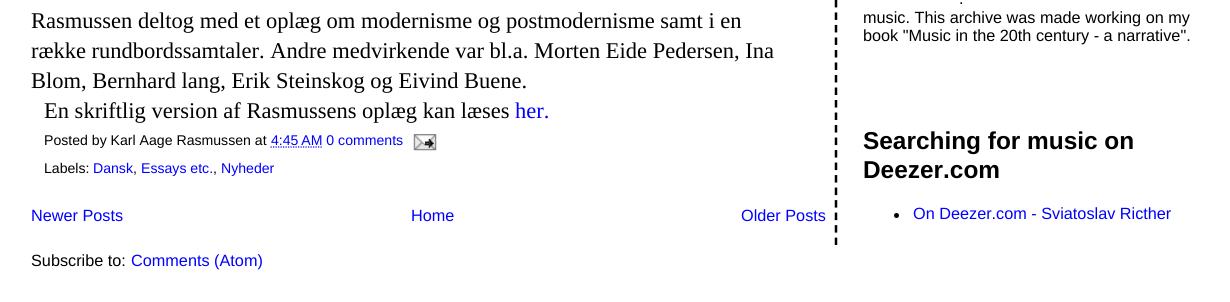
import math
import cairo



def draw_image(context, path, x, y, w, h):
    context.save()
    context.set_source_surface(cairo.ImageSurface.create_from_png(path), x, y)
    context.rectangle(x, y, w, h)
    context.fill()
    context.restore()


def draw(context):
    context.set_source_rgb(1, 1, 1)
    context.paint()
    context.new_path()
    context.move_to(270.5, 147)
    context.line_to(322, 147)
    context.set_source_rgb(0, 0, 1)
    context.set_line_width(1.2)
    context.set_dash([1.25, 1.25])
    context.stroke()
    draw_image(context, "images/1.png", 413, 134, 24, 17)
    context.new_path()
    context.move_to(836, -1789)
    context.line_to(836, 245)
    context.set_source_rgb(0, 0, 0)
    context.set_line_width(2.5)
    context.set_dash([7.5, 5.01])
    context.stroke()
    context.arc(896.5, 215.5, 2.5, 0, 2 * math.pi)
    context.fill()
    context.select_font_face("Liberation Serif")
    context.set_font_size(22.5)
    context.move_to(31, 28)
    context.show_text("Rasmussen deltog med et oplæg om modernisme og postmodernisme samt i en")
    context.move_to(31, 58)
    context.show_text("række rundbordssamtaler. Andre medvirkende var bl.a. Morten Eide Pedersen, Ina")
    context.move_to(31, 88)
    context.show_text("Blom, Bernhard lang, Erik Steinskog og Eivind Buene.")
    context.move_to(44, 118)
    context.show_text("En skriftlig version af Rasmussens oplæg kan læses")
    context.set_source_rgb(0, 0, 1)
    context.move_to(515, 118)
    context.show_text("her.")
    context.select_font_face("Liberation Sans")
    context.set_font_size(14.1)
    context.set_source_rgb(0, 0, 0)
    context.move_to(44, 145)
    context.show_text("Posted by Karl Aage Rasmussen at")
    context.set_source_rgb(0, 0, 1)
    context.move_to(271, 145)
    context.show_text("4:45 AM 0 comments")
    context.set_source_rgb(0, 0, 0)
    context.move_to(44, 173)
    context.show_text("Labels:")
    context.set_source_rgb(0, 0, 1)
    context.move_to(93, 173)
    context.show_text("Dansk")
    context.set_source_rgb(0, 0, 0)
    context.move_to(133, 173)
    context.show_text(",")
    context.set_source_rgb(0, 0, 1)
    context.move_to(141, 173)
    context.show_text("Essays etc.")
    context.set_source_rgb(0, 0, 0)
    context.move_to(213, 173)
    context.show_text(",")
    context.set_source_rgb(0, 0, 1)
    context.move_to(221, 173)
    context.show_text("Nyheder")
    context.set_font_size(16.25)
    context.move_to(31, 221)
    context.show_text("Newer Posts")
    context.move_to(411, 221)
    context.show_text("Home")
    context.move_to(741, 221)
    context.show_text("Older Posts")
    context.set_source_rgb(0, 0, 0)
    context.move_to(31, 266)
    context.show_text("Subscribe to:")
    context.set_source_rgb(0, 0, 1)
    context.move_to(131, 266)
    context.show_text("Comments (Atom)")
    context.set_source_rgb(0, 0, 0)
    context.move_to(959, 4)
    context.show_text(".")
    context.move_to(863, 23)
    context.show_text("music. This archive was made working on my")
    context.move_to(863, 41)
    context.show_text("book \"Music in the 20th century - a narrative\".")
    context.select_font_face("Liberation Sans", cairo.FontSlant.NORMAL, cairo.FontWeight.BOLD)
    context.set_font_size(24.4)
    context.move_to(863, 149)
    context.show_text("Searching for music on")
    context.move_to(863, 178)
    context.show_text("Deezer.com")
    context.select_font_face("Liberation Sans")
    context.set_font_size(16.25)
    context.set_source_rgb(0, 0, 1)
    context.move_to(913, 219)
    context.show_text("On Deezer.com - Sviatoslav Ricther")


surface = cairo.ImageSurface(cairo.Format.RGB24, 1230, 302)
context = cairo.Context(surface)
options = cairo.FontOptions()
options.set_hint_metrics(cairo.HintMetrics.OFF)
options.set_hint_style(cairo.HintStyle.NONE)
context.set_font_options(options)
context.set_miter_limit(4)
draw(context)
surface.write_to_png("out.png")
